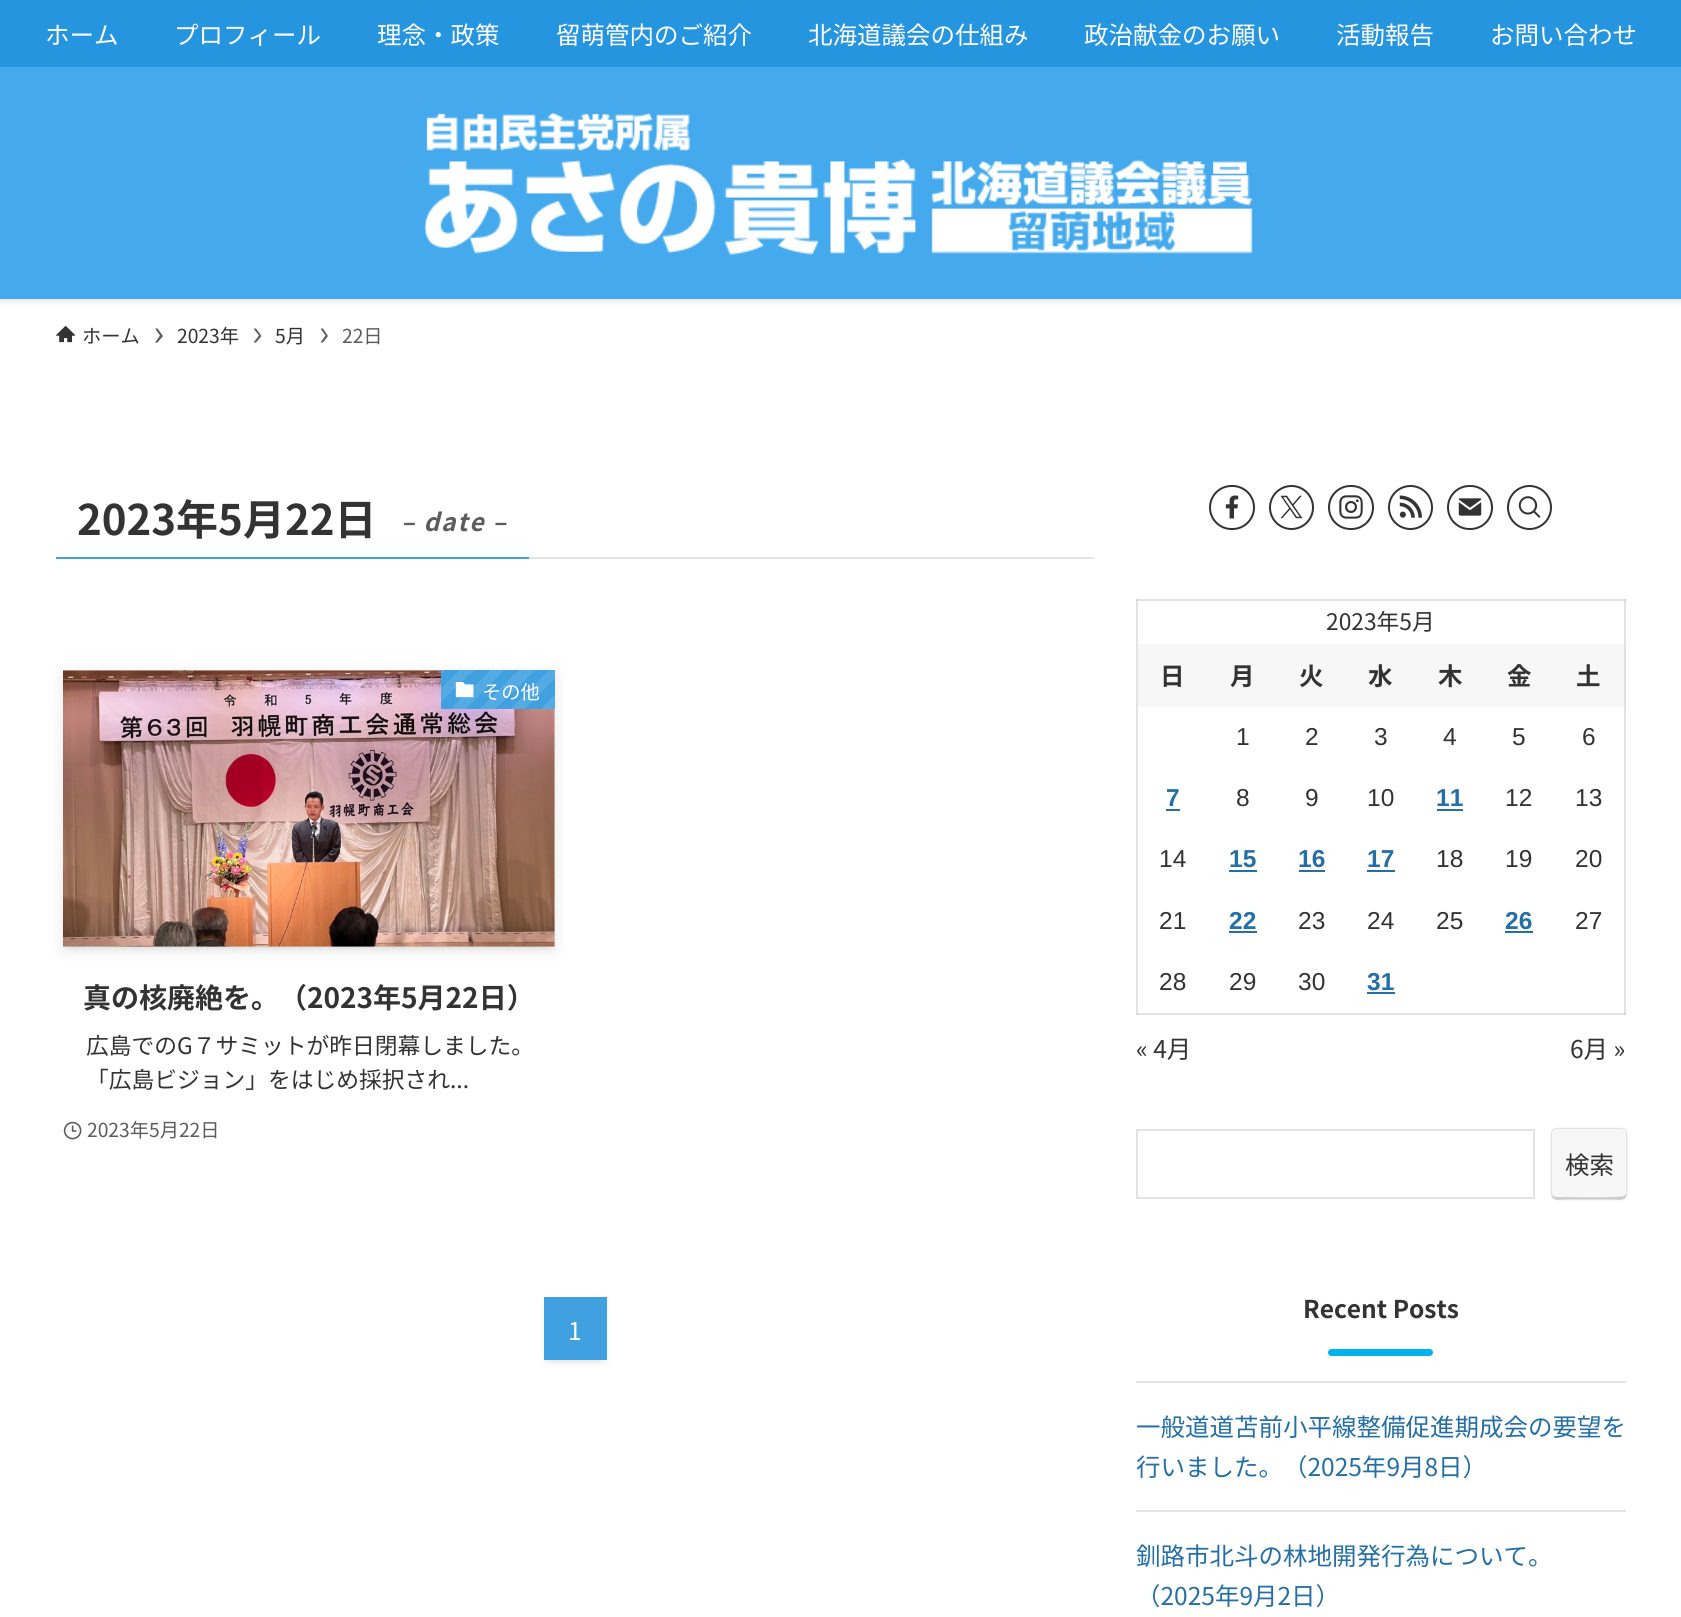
import math
import cairo



def draw_spaced(context, x, y, s, letter, word):
    context.move_to(x, y)
    for ch in s:
        context.show_text(ch)
        context.rel_move_to(letter + word * (ch == ' '), 0)


def rounded_rect(context, x, y, w, h, r):
    context.new_sub_path()
    for i, (u, v) in enumerate([(x + w - r, y + h - r), (x + r, y + h - r), (x + r, y + r), (x + w - r, y + r)]):
        context.arc(u, v, r, i * math.pi / 2, (i + 1) * math.pi / 2)
    context.close_path()


def draw_shadow(context, x, y, w, h, r, blur, alpha):
    context.push_group_with_content(cairo.Content.ALPHA)
    context.set_operator(cairo.Operator.SOURCE)
    for i in range(15, -16, -2):
        e = blur * i / 6
        if min(w, h) + 2 * e > 0:
            context.set_source_rgba(0, 0, 0, alpha * math.erfc((i - 1) / 8.5) / 2)
            rounded_rect(context, x - e, y - e, w + 2 * e, h + 2 * e, max(0, min(r + e + blur * .6, min(w, h) / 2 + e)))
            context.fill()
    context.mask(context.pop_group())


def draw_image(context, path, x, y, w, h):
    context.save()
    context.set_source_surface(cairo.ImageSurface.create_from_png(path), x, y)
    context.rectangle(x, y, w, h)
    context.fill()
    context.restore()


def draw(context):
    context.set_source_rgb(1, 1, 1)
    context.paint()
    context.set_source_rgb(227 / 255, 227 / 255, 227 / 255)
    context.rectangle(1136, 599, 2, 416)
    context.fill()
    context.rectangle(1136, 1013, 490, 2)
    context.fill()
    context.set_source_rgb(213 / 255, 213 / 255, 213 / 255)
    context.rectangle(1136, 1013, 2, 2)
    context.fill()
    context.set_source_rgb(227 / 255, 227 / 255, 227 / 255)
    context.rectangle(1624, 599, 2, 416)
    context.fill()
    context.set_source_rgb(213 / 255, 213 / 255, 213 / 255)
    context.rectangle(1624, 1013, 2, 2)
    context.fill()
    context.set_source_rgb(0, 0, 0)
    draw_shadow(context, 0, 2, 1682, 299, 0, 3.5, 0.12)
    context.set_source_rgb(68 / 255, 169 / 255, 237 / 255)
    context.rectangle(0, 67, 1681, 232)
    context.fill()
    context.set_source_rgb(38 / 255, 149 / 255, 224 / 255)
    context.rectangle(0, 0, 1681, 67)
    context.fill()
    draw_image(context, "images/1.png", 424, 112, 829, 143)
    draw_image(context, "images/2.png", 56, 325, 20, 18)
    context.set_source_rgb(92 / 255, 92 / 255, 92 / 255)
    context.new_path()
    context.move_to(157.5, 328.5)
    context.line_to(155, 328.5)
    context.line_to(160, 335.5)
    context.line_to(155, 342.5)
    context.line_to(157.5, 342.5)
    context.line_to(163, 336)
    context.close_path()
    context.fill()
    context.new_path()
    context.move_to(256, 328.5)
    context.line_to(253.5, 328.5)
    context.line_to(259, 335.5)
    context.line_to(253.5, 342.5)
    context.line_to(256, 342.5)
    context.line_to(261.5, 336)
    context.close_path()
    context.fill()
    context.new_path()
    context.move_to(323, 328.5)
    context.line_to(320.5, 328.5)
    context.line_to(325.5, 335.5)
    context.line_to(320.5, 342.5)
    context.line_to(323, 342.5)
    context.line_to(328, 336)
    context.close_path()
    context.fill()
    context.set_source_rgb(227 / 255, 227 / 255, 227 / 255)
    context.rectangle(529, 557, 565, 2)
    context.fill()
    context.set_source_rgb(65 / 255, 160 / 255, 224 / 255)
    context.rectangle(56, 557, 473, 2)
    context.fill()
    context.set_source_rgb(0, 0, 0)
    draw_shadow(context, 70, 684, 478, 263, 0, 3.5, 0.1)
    draw_shadow(context, 63, 674, 492, 276, 0, 7, 0.1)
    draw_image(context, "images/3.png", 63, 670, 492, 277)
    gradient = cairo.LinearGradient(536, 728, 447, 638)
    gradient.add_color_stop_rgba(0, 84 / 255, 170 / 255, 227 / 255, 1)
    gradient.add_color_stop_rgba(0.08, 84 / 255, 170 / 255, 227 / 255, 1)
    gradient.add_color_stop_rgba(0.08, 65 / 255, 160 / 255, 224 / 255, 1)
    gradient.add_color_stop_rgba(0.17, 65 / 255, 160 / 255, 224 / 255, 1)
    gradient.add_color_stop_rgba(0.17, 84 / 255, 170 / 255, 227 / 255, 1)
    gradient.add_color_stop_rgba(0.25, 84 / 255, 170 / 255, 227 / 255, 1)
    gradient.add_color_stop_rgba(0.25, 65 / 255, 160 / 255, 224 / 255, 1)
    gradient.add_color_stop_rgba(0.33, 65 / 255, 160 / 255, 224 / 255, 1)
    gradient.add_color_stop_rgba(0.33, 84 / 255, 170 / 255, 227 / 255, 1)
    gradient.add_color_stop_rgba(0.42, 84 / 255, 170 / 255, 227 / 255, 1)
    gradient.add_color_stop_rgba(0.42, 65 / 255, 160 / 255, 224 / 255, 1)
    gradient.add_color_stop_rgba(0.5, 65 / 255, 160 / 255, 224 / 255, 1)
    gradient.add_color_stop_rgba(0.5, 84 / 255, 170 / 255, 227 / 255, 1)
    gradient.add_color_stop_rgba(0.58, 84 / 255, 170 / 255, 227 / 255, 1)
    gradient.add_color_stop_rgba(0.58, 65 / 255, 160 / 255, 224 / 255, 1)
    gradient.add_color_stop_rgba(0.67, 65 / 255, 160 / 255, 224 / 255, 1)
    gradient.add_color_stop_rgba(0.67, 84 / 255, 170 / 255, 227 / 255, 1)
    gradient.add_color_stop_rgba(0.75, 84 / 255, 170 / 255, 227 / 255, 1)
    gradient.add_color_stop_rgba(0.75, 65 / 255, 160 / 255, 224 / 255, 1)
    gradient.add_color_stop_rgba(0.83, 65 / 255, 160 / 255, 224 / 255, 1)
    gradient.add_color_stop_rgba(0.83, 84 / 255, 170 / 255, 227 / 255, 1)
    gradient.add_color_stop_rgba(0.92, 84 / 255, 170 / 255, 227 / 255, 1)
    gradient.add_color_stop_rgba(0.92, 65 / 255, 160 / 255, 224 / 255, 1)
    gradient.add_color_stop_rgba(1, 65 / 255, 160 / 255, 224 / 255, 1)
    context.set_source(gradient)
    context.rectangle(441, 670, 114, 39)
    context.fill()
    draw_image(context, "images/4.png", 455, 682, 19, 16)
    draw_image(context, "images/5.png", 63, 1121, 19, 19)
    context.set_source_rgb(0, 0, 0)
    draw_shadow(context, 551, 1311, 49, 49, 0, 3.5, 0.1)
    draw_shadow(context, 544, 1300, 63, 63, 0, 3.5, 0.05)
    context.set_source_rgb(65 / 255, 160 / 255, 224 / 255)
    context.rectangle(544, 1297, 63, 63)
    context.fill()
    rounded_rect(context, 1210, 486, 44, 43, 21.5)
    context.set_source_rgb(51 / 255, 51 / 255, 51 / 255)
    context.stroke()
    draw_image(context, "images/6.png", 1225, 495, 14, 24)
    context.arc(1291.5, 507.5, 21.5, 0, 2 * math.pi)
    context.stroke()
    draw_image(context, "images/7.png", 1280, 495, 23, 24)
    rounded_rect(context, 1329, 486, 44, 43, 21.5)
    context.stroke()
    draw_image(context, "images/8.png", 1339, 495, 24, 24)
    context.arc(1410.5, 507.5, 21.5, 0, 2 * math.pi)
    context.stroke()
    draw_image(context, "images/9.png", 1399, 495, 23, 23)
    rounded_rect(context, 1448, 486, 44, 43, 21.5)
    context.stroke()
    draw_image(context, "images/10.png", 1458, 498, 24, 18)
    context.arc(1529.5, 507.5, 21.5, 0, 2 * math.pi)
    context.stroke()
    draw_image(context, "images/11.png", 1518, 496, 23, 22)
    context.set_source_rgb(227 / 255, 227 / 255, 227 / 255)
    context.rectangle(1136, 599, 490, 2)
    context.fill()
    context.set_source_rgb(213 / 255, 213 / 255, 213 / 255)
    context.rectangle(1136, 599, 2, 2)
    context.fill()
    context.rectangle(1624, 599, 2, 2)
    context.fill()
    context.set_source_rgb(247 / 255, 247 / 255, 247 / 255)
    context.rectangle(1138, 644, 486, 63)
    context.fill()
    context.set_source_rgb(223 / 255, 223 / 255, 223 / 255)
    context.rectangle(1624, 644, 2, 63)
    context.fill()
    context.set_source_rgb(36 / 255, 111 / 255, 165 / 255)
    context.rectangle(1166, 809, 14, 2)
    context.fill()
    context.rectangle(1437, 809, 26, 2)
    context.fill()
    context.rectangle(1229, 870, 28, 2)
    context.fill()
    context.rectangle(1299, 870, 26, 2)
    context.fill()
    context.rectangle(1367, 870, 28, 2)
    context.fill()
    context.rectangle(1229, 931, 28, 2)
    context.fill()
    context.rectangle(1505, 931, 28, 2)
    context.fill()
    context.rectangle(1367, 992, 28, 2)
    context.fill()
    context.rectangle(1137, 1130, 397, 68)
    context.set_source_rgb(227 / 255, 227 / 255, 227 / 255)
    context.stroke()
    context.set_source_rgb(170 / 255, 170 / 255, 170 / 255)
    draw_shadow(context, 1552, 1129, 74, 70, 4, 1, 1)
    context.set_source_rgb(247 / 255, 247 / 255, 247 / 255)
    rounded_rect(context, 1552, 1129, 74, 70, 4)
    context.fill()
    context.set_source_rgb(204 / 255, 204 / 255, 204 / 255)
    context.new_path()
    context.move_to(1552, 1194)
    context.curve_to(1552, 1202, 1562, 1199, 1567, 1199)
    context.line_to(1611, 1199)
    context.curve_to(1616, 1199, 1626, 1202, 1626, 1194)
    context.line_to(1624, 1196)
    context.curve_to(1621, 1198, 1564, 1197, 1556, 1197)
    context.line_to(1553, 1196)
    context.close_path()
    context.fill()
    context.set_source_rgb(0, 179 / 255, 239 / 255)
    rounded_rect(context, 1328, 1349, 105, 7, 3.5)
    context.fill()
    context.set_source_rgb(227 / 255, 227 / 255, 227 / 255)
    context.rectangle(1136, 1381, 490, 2)
    context.fill()
    context.rectangle(1136, 1510, 490, 2)
    context.fill()
    context.select_font_face("Noto Sans JP")
    context.set_font_size(24.5)
    context.set_source_rgb(1, 1, 1)
    context.move_to(45, 44)
    context.show_text("ホーム")
    context.move_to(174, 44)
    context.show_text("プロフィール")
    context.move_to(377, 44)
    context.show_text("理念・政策")
    context.move_to(556, 44)
    context.show_text("留萌管内のご紹介")
    context.move_to(808, 44)
    context.show_text("北海道議会の仕組み")
    context.move_to(1084, 44)
    context.show_text("政治献金のお願い")
    context.move_to(1336, 44)
    context.show_text("活動報告")
    context.move_to(1490, 44)
    context.show_text("お問い合わせ")
    context.set_font_size(19.25)
    context.set_source_rgb(51 / 255, 51 / 255, 51 / 255)
    context.move_to(82, 343)
    context.show_text("ホーム")
    context.move_to(177, 343)
    context.show_text("2023年")
    context.move_to(275, 343)
    context.show_text("5月")
    context.set_source_rgb(92 / 255, 92 / 255, 92 / 255)
    context.move_to(342, 343)
    context.show_text("22日")
    context.select_font_face("Noto Sans JP", cairo.FontSlant.NORMAL, cairo.FontWeight.BOLD)
    context.set_font_size(42)
    context.set_source_rgb(51 / 255, 51 / 255, 51 / 255)
    context.move_to(77, 535)
    context.show_text("2023年5月22日")
    context.select_font_face("Noto Sans JP", cairo.FontSlant.ITALIC, cairo.FontWeight.BOLD)
    context.set_font_size(24.5)
    context.set_source_rgb(92 / 255, 92 / 255, 92 / 255)
    draw_spaced(context, 401, 531, "– date –", 1.75, 0)
    context.select_font_face("Noto Sans JP")
    context.set_font_size(19.25)
    context.set_source_rgb(1, 1, 1)
    context.move_to(482, 699)
    context.show_text("その他")
    context.select_font_face("Noto Sans JP", cairo.FontSlant.NORMAL, cairo.FontWeight.BOLD)
    context.set_font_size(28)
    context.set_source_rgb(51 / 255, 51 / 255, 51 / 255)
    context.move_to(83, 1008)
    context.show_text("真の核廃絶を。（2023年5月22日）")
    context.select_font_face("Noto Sans JP")
    context.set_font_size(22.75)
    context.move_to(86, 1054)
    context.show_text("広島でのG７サミットが昨日閉幕しました。")
    context.move_to(86, 1088)
    context.show_text("「広島ビジョン」をはじめ採択され...")
    context.set_font_size(19.25)
    context.set_source_rgb(92 / 255, 92 / 255, 92 / 255)
    context.move_to(87, 1137)
    context.show_text("2023年5月22日")
    context.set_font_size(24.5)
    context.set_source_rgb(1, 1, 1)
    context.move_to(568, 1340)
    context.show_text("1")
    context.set_font_size(22.75)
    context.set_source_rgb(51 / 255, 51 / 255, 51 / 255)
    context.move_to(1326, 630)
    context.show_text("2023年5月")
    context.select_font_face("Noto Sans JP", cairo.FontSlant.NORMAL, cairo.FontWeight.BOLD)
    context.set_font_size(24.5)
    context.move_to(1160, 685)
    context.show_text("日")
    context.move_to(1230, 685)
    context.show_text("月")
    context.move_to(1299, 685)
    context.show_text("火")
    context.move_to(1368, 685)
    context.show_text("水")
    context.move_to(1438, 685)
    context.show_text("木")
    context.move_to(1507, 685)
    context.show_text("金")
    context.move_to(1576, 685)
    context.show_text("土")
    context.select_font_face("Liberation Sans")
    context.move_to(1236, 745)
    context.show_text("1")
    context.move_to(1305, 745)
    context.show_text("2")
    context.move_to(1374, 745)
    context.show_text("3")
    context.move_to(1443, 745)
    context.show_text("4")
    context.move_to(1512, 745)
    context.show_text("5")
    context.move_to(1582, 745)
    context.show_text("6")
    context.select_font_face("Liberation Sans", cairo.FontSlant.NORMAL, cairo.FontWeight.BOLD)
    context.set_source_rgb(36 / 255, 111 / 255, 165 / 255)
    context.move_to(1166, 806)
    context.show_text("7")
    context.select_font_face("Liberation Sans")
    context.set_source_rgb(51 / 255, 51 / 255, 51 / 255)
    context.move_to(1236, 806)
    context.show_text("8")
    context.move_to(1305, 806)
    context.show_text("9")
    context.move_to(1367, 806)
    context.show_text("10")
    context.select_font_face("Liberation Sans", cairo.FontSlant.NORMAL, cairo.FontWeight.BOLD)
    context.set_source_rgb(36 / 255, 111 / 255, 165 / 255)
    context.move_to(1436, 806)
    context.show_text("11")
    context.select_font_face("Liberation Sans")
    context.set_source_rgb(51 / 255, 51 / 255, 51 / 255)
    context.move_to(1505, 806)
    context.show_text("12")
    context.move_to(1575, 806)
    context.show_text("13")
    context.move_to(1159, 867)
    context.show_text("14")
    context.select_font_face("Liberation Sans", cairo.FontSlant.NORMAL, cairo.FontWeight.BOLD)
    context.set_source_rgb(36 / 255, 111 / 255, 165 / 255)
    context.move_to(1229, 867)
    context.show_text("15")
    context.move_to(1298, 867)
    context.show_text("16")
    context.move_to(1367, 867)
    context.show_text("17")
    context.select_font_face("Liberation Sans")
    context.set_source_rgb(51 / 255, 51 / 255, 51 / 255)
    context.move_to(1436, 867)
    context.show_text("18")
    context.move_to(1505, 867)
    context.show_text("19")
    context.move_to(1575, 867)
    context.show_text("20")
    context.move_to(1159, 929)
    context.show_text("21")
    context.select_font_face("Liberation Sans", cairo.FontSlant.NORMAL, cairo.FontWeight.BOLD)
    context.set_source_rgb(36 / 255, 111 / 255, 165 / 255)
    context.move_to(1229, 929)
    context.show_text("22")
    context.select_font_face("Liberation Sans")
    context.set_source_rgb(51 / 255, 51 / 255, 51 / 255)
    context.move_to(1298, 929)
    context.show_text("23")
    context.move_to(1367, 929)
    context.show_text("24")
    context.move_to(1436, 929)
    context.show_text("25")
    context.select_font_face("Liberation Sans", cairo.FontSlant.NORMAL, cairo.FontWeight.BOLD)
    context.set_source_rgb(36 / 255, 111 / 255, 165 / 255)
    context.move_to(1505, 929)
    context.show_text("26")
    context.select_font_face("Liberation Sans")
    context.set_source_rgb(51 / 255, 51 / 255, 51 / 255)
    context.move_to(1575, 929)
    context.show_text("27")
    context.move_to(1159, 990)
    context.show_text("28")
    context.move_to(1229, 990)
    context.show_text("29")
    context.move_to(1298, 990)
    context.show_text("30")
    context.select_font_face("Liberation Sans", cairo.FontSlant.NORMAL, cairo.FontWeight.BOLD)
    context.set_source_rgb(36 / 255, 111 / 255, 165 / 255)
    context.move_to(1367, 990)
    context.show_text("31")
    context.select_font_face("Noto Sans JP")
    context.set_source_rgb(51 / 255, 51 / 255, 51 / 255)
    context.move_to(1136, 1058)
    context.show_text("« 4月")
    context.move_to(1570, 1058)
    context.show_text("6月 »")
    context.move_to(1565, 1174)
    context.show_text("検索")
    context.select_font_face("Noto Sans JP", cairo.FontSlant.NORMAL, cairo.FontWeight.BOLD)
    context.move_to(1303, 1318)
    context.show_text("Recent Posts")
    context.select_font_face("Noto Sans JP")
    context.set_source_rgb(36 / 255, 111 / 255, 165 / 255)
    context.move_to(1136, 1436)
    context.show_text("一般道道苫前小平線整備促進期成会の要望を")
    context.move_to(1136, 1476)
    context.show_text("行いました。（2025年9月8日）")
    context.move_to(1136, 1565)
    context.show_text("釧路市北斗の林地開発行為について。")
    context.move_to(1136, 1605)
    context.show_text("（2025年9月2日）")


surface = cairo.ImageSurface(cairo.Format.RGB24, 1681, 1617)
context = cairo.Context(surface)
options = cairo.FontOptions()
options.set_hint_metrics(cairo.HintMetrics.OFF)
options.set_hint_style(cairo.HintStyle.NONE)
context.set_font_options(options)
context.set_miter_limit(4)
draw(context)
surface.write_to_png("out.png")
